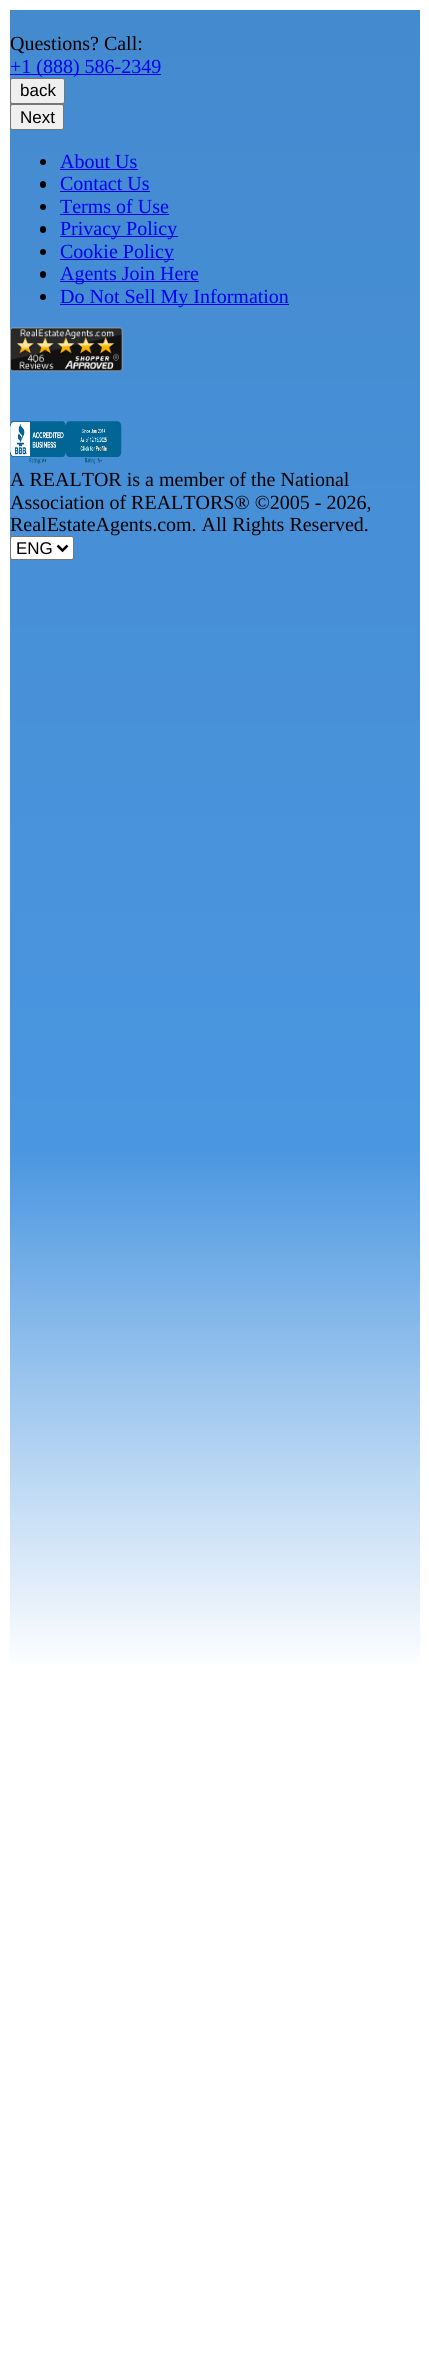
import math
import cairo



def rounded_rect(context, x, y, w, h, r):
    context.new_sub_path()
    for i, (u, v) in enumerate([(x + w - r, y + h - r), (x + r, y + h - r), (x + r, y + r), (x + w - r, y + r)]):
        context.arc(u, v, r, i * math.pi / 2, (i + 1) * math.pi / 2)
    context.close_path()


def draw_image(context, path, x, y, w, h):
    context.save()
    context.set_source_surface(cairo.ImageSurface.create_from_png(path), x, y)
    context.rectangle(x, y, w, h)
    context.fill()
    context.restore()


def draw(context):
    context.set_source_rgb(1, 1, 1)
    context.paint()
    gradient = cairo.LinearGradient(215, 10, 215, 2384)
    gradient.add_color_stop_rgba(0, 68 / 255, 138 / 255, 207 / 255, 1)
    gradient.add_color_stop_rgba(0.48, 74 / 255, 150 / 255, 224 / 255, 1)
    gradient.add_color_stop_rgba(0.7, 1, 1, 1, 1)
    context.set_source(gradient)
    context.rectangle(10, 10, 410, 1655)
    context.fill()
    context.set_source_rgb(0, 0, 238 / 255)
    context.rectangle(10, 74, 151, 1)
    context.fill()
    context.set_source_rgb(239 / 255, 239 / 255, 239 / 255)
    rounded_rect(context, 10.5, 78.5, 54, 25, 2)
    context.fill_preserve()
    context.set_source_rgb(118 / 255, 118 / 255, 118 / 255)
    context.set_line_width(1)
    context.stroke()
    context.set_source_rgb(239 / 255, 239 / 255, 239 / 255)
    rounded_rect(context, 10.5, 104.5, 53, 25, 2)
    context.fill_preserve()
    context.set_source_rgb(118 / 255, 118 / 255, 118 / 255)
    context.stroke()
    context.set_source_rgb(0, 0, 0)
    context.arc(43, 162, 3, 0, 2 * math.pi)
    context.fill()
    context.set_source_rgb(0, 0, 238 / 255)
    context.rectangle(60, 169, 78, 1)
    context.fill()
    context.set_source_rgb(0, 0, 0)
    rounded_rect(context, 40, 181, 6, 7, 3)
    context.fill()
    context.set_source_rgb(0, 0, 238 / 255)
    context.rectangle(60, 191, 90, 1)
    context.fill()
    context.set_source_rgb(0, 0, 0)
    context.arc(43, 207, 3, 0, 2 * math.pi)
    context.fill()
    context.set_source_rgb(0, 0, 238 / 255)
    context.rectangle(60, 214, 109, 1)
    context.fill()
    context.set_source_rgb(0, 0, 0)
    rounded_rect(context, 40, 226, 6, 7, 3)
    context.fill()
    context.set_source_rgb(0, 0, 238 / 255)
    context.rectangle(60, 236, 118, 1)
    context.fill()
    context.set_source_rgb(0, 0, 0)
    context.arc(43, 252, 3, 0, 2 * math.pi)
    context.fill()
    context.set_source_rgb(0, 0, 238 / 255)
    context.rectangle(60, 259, 114, 1)
    context.fill()
    context.set_source_rgb(0, 0, 0)
    rounded_rect(context, 40, 271, 6, 7, 3)
    context.fill()
    context.set_source_rgb(0, 0, 238 / 255)
    context.rectangle(60, 281, 139, 1)
    context.fill()
    context.set_source_rgb(0, 0, 0)
    context.arc(43, 297, 3, 0, 2 * math.pi)
    context.fill()
    context.set_source_rgb(0, 0, 238 / 255)
    context.rectangle(60, 304, 229, 1)
    context.fill()
    draw_image(context, "images/1.png", 10, 327, 113, 45)
    draw_image(context, "images/2.png", 10, 421, 112, 43)
    context.set_source_rgb(1, 1, 1)
    rounded_rect(context, 10.5, 536.5, 63, 23, 2)
    context.fill_preserve()
    context.set_source_rgb(118 / 255, 118 / 255, 118 / 255)
    context.stroke()
    context.new_path()
    context.move_to(57.5, 545.5)
    context.line_to(62.5, 550.5)
    context.line_to(67.5, 545.5)
    context.set_source_rgb(0, 0, 0)
    context.set_line_width(2.5)
    context.stroke()
    context.select_font_face("Liberation Serif")
    context.set_font_size(20)
    context.move_to(10, 50)
    context.show_text("Questions? Call:")
    context.set_source_rgb(0, 0, 238 / 255)
    context.move_to(10, 73)
    context.show_text("+1 (888) 586-2349")
    context.select_font_face("Liberation Sans")
    context.set_font_size(17)
    context.set_source_rgb(0, 0, 0)
    context.move_to(20, 96)
    context.show_text("back")
    context.move_to(20, 123)
    context.show_text("Next")
    context.select_font_face("Liberation Serif")
    context.set_font_size(20)
    context.set_source_rgb(0, 0, 238 / 255)
    context.move_to(60, 168)
    context.show_text("About Us")
    context.move_to(60, 190)
    context.show_text("Contact Us")
    context.move_to(60, 213)
    context.show_text("Terms of Use")
    context.move_to(60, 235)
    context.show_text("Privacy Policy")
    context.move_to(60, 258)
    context.show_text("Cookie Policy")
    context.move_to(60, 280)
    context.show_text("Agents Join Here")
    context.move_to(60, 303)
    context.show_text("Do Not Sell My Information")
    context.set_source_rgb(0, 0, 0)
    context.move_to(10, 486)
    context.show_text("A REALTOR is a member of the National")
    context.move_to(10, 509)
    context.show_text("Association of REALTORS® ©2005 - 2026,")
    context.move_to(10, 531)
    context.show_text("RealEstateAgents.com. All Rights Reserved.")
    context.select_font_face("Liberation Sans")
    context.set_font_size(17)
    context.move_to(16, 554)
    context.show_text("ENG")


surface = cairo.ImageSurface(cairo.Format.RGB24, 429, 2373)
context = cairo.Context(surface)
options = cairo.FontOptions()
options.set_hint_metrics(cairo.HintMetrics.OFF)
options.set_hint_style(cairo.HintStyle.NONE)
context.set_font_options(options)
context.set_miter_limit(4)
draw(context)
surface.write_to_png("out.png")
